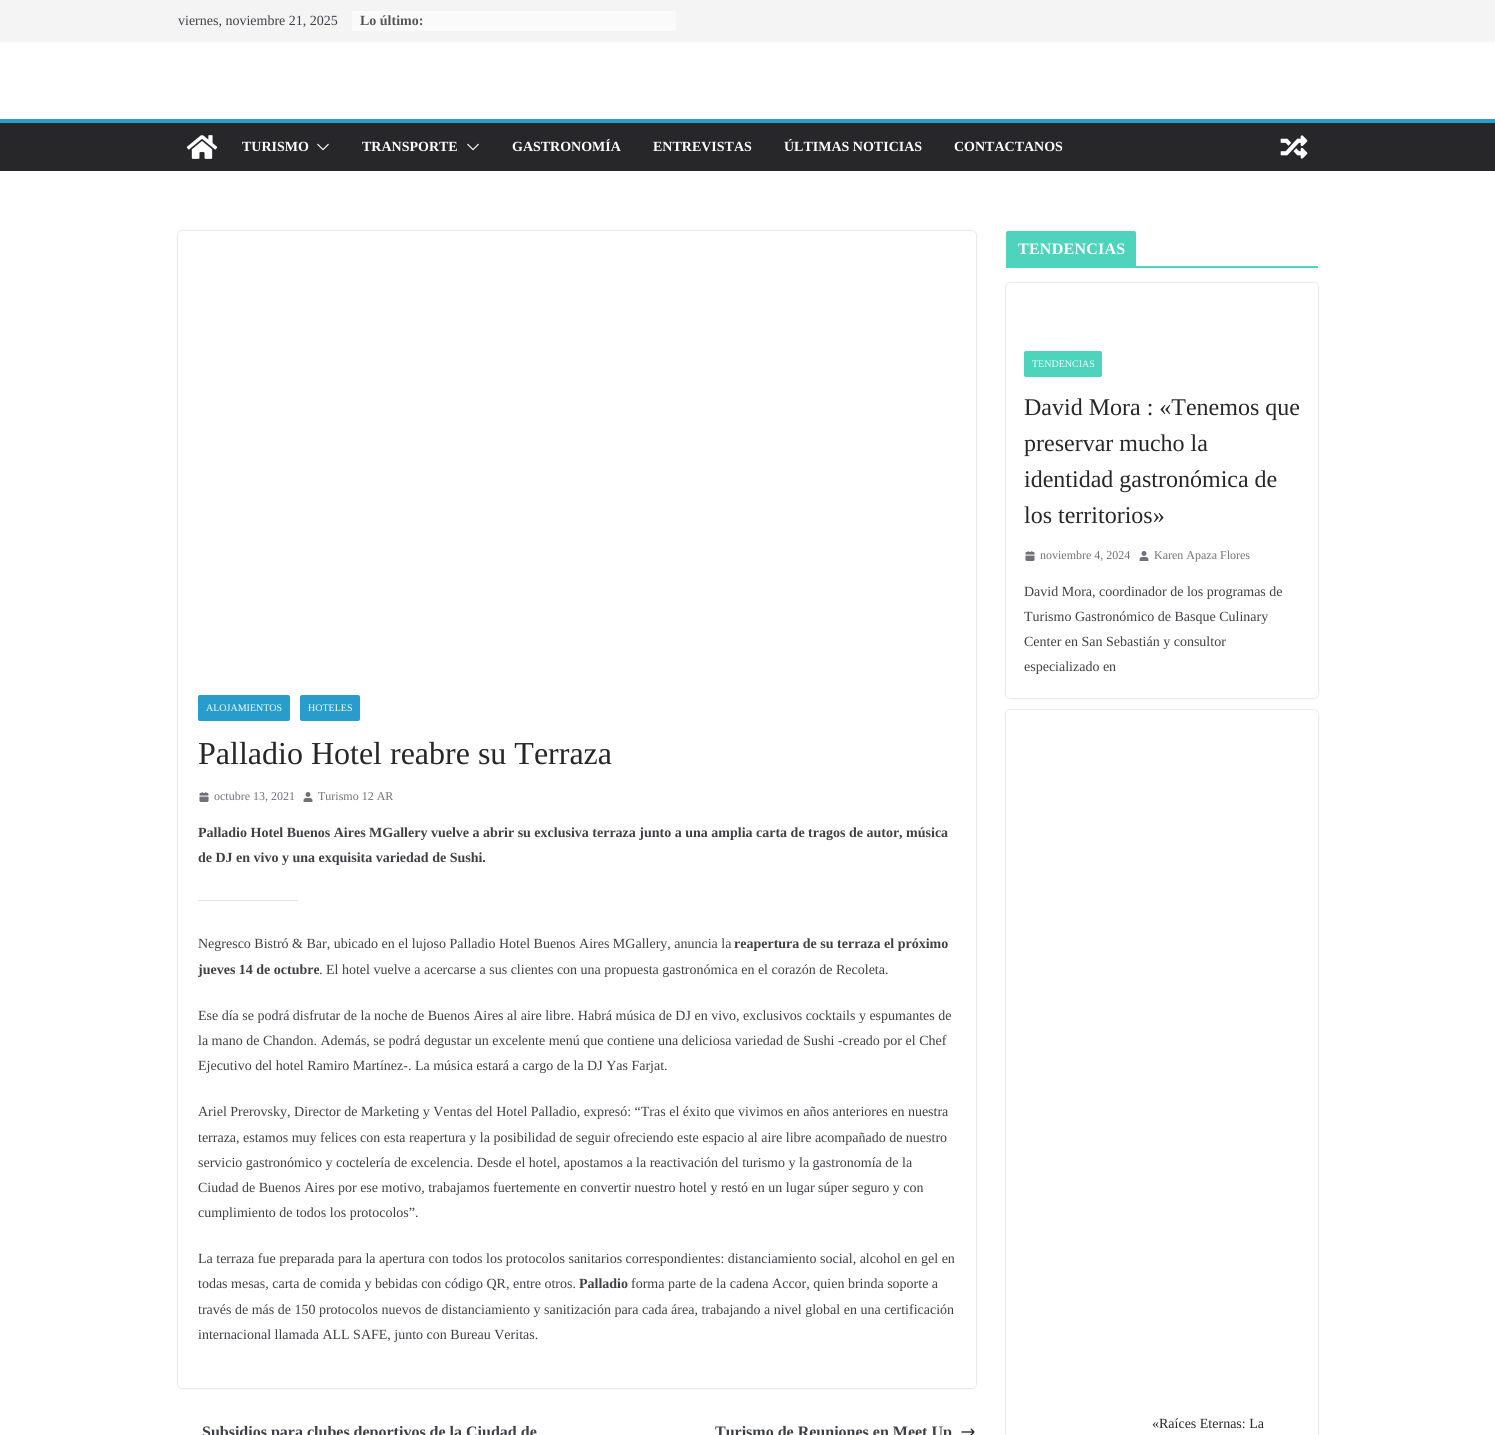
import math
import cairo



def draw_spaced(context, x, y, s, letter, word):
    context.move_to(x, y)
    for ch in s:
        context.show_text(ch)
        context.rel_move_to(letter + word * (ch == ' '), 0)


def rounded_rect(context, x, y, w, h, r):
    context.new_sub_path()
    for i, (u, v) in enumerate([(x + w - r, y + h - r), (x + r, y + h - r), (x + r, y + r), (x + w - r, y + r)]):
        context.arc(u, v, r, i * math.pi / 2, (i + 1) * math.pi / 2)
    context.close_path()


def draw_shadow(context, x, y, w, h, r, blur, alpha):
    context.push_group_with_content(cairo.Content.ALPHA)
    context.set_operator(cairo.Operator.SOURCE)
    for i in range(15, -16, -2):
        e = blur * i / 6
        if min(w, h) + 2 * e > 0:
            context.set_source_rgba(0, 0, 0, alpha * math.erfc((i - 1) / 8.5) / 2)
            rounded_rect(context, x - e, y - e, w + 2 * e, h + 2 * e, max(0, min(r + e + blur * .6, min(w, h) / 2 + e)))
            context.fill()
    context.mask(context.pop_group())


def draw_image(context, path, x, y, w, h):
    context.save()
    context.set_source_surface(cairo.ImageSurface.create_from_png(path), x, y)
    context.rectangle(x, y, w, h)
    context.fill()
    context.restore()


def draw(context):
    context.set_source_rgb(1, 1, 1)
    context.paint()
    context.set_source_rgb(0, 0, 0)
    draw_shadow(context, 0, 0, 1495, 41, 0, 1, 0.1)
    context.set_source_rgb(244 / 255, 244 / 255, 245 / 255)
    context.rectangle(0, 0, 1495, 41)
    context.fill()
    context.set_source_rgb(250 / 255, 250 / 255, 250 / 255)
    context.rectangle(352, 11, 324, 20)
    context.fill()
    context.set_source_rgb(39 / 255, 39 / 255, 42 / 255)
    context.rectangle(0, 123, 1495, 48)
    context.fill()
    context.set_source_rgb(40 / 255, 157 / 255, 204 / 255)
    context.rectangle(0, 119, 1495, 4)
    context.fill()
    draw_image(context, "images/1.png", 186, 135, 32, 24)
    draw_image(context, "images/2.png", 317, 143, 12, 8)
    draw_image(context, "images/2.png", 467, 143, 12, 8)
    draw_image(context, "images/3.png", 1280, 135, 28, 24)
    context.save()
    context.set_fill_rule(cairo.FillRule.EVEN_ODD)
    context.new_path()
    context.move_to(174, 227)
    context.line_to(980, 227)
    context.line_to(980, 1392)
    context.line_to(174, 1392)
    context.close_path()
    context.move_to(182, 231)
    context.line_to(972, 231)
    context.curve_to(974, 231, 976, 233, 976, 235)
    context.line_to(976, 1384)
    context.curve_to(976, 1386, 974, 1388, 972, 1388)
    context.line_to(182, 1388)
    context.curve_to(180, 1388, 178, 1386, 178, 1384)
    context.line_to(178, 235)
    context.curve_to(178, 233, 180, 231, 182, 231)
    context.close_path()
    context.clip()
    context.set_source_rgb(0, 0, 0)
    draw_shadow(context, 178, 231, 798, 1157, 4, 1, 0.24)
    context.restore()
    rounded_rect(context, 198, 695, 92, 26, 2)
    context.fill()
    rounded_rect(context, 300, 695, 60, 26, 2)
    context.fill()
    draw_image(context, "images/4.png", 199, 792, 10, 10)
    draw_image(context, "images/5.png", 303, 792, 10, 10)
    context.set_source_rgb(228 / 255, 228 / 255, 231 / 255)
    context.rectangle(198, 900, 100, 1)
    context.fill()
    draw_image(context, "images/6.png", 961, 1428, 14, 7)
    context.set_source_rgb(78 / 255, 211 / 255, 189 / 255)
    context.rectangle(1006, 266, 312, 2)
    context.fill()
    context.new_path()
    context.move_to(1008, 231)
    context.line_to(1134, 231)
    context.curve_to(1135, 231, 1136, 232, 1136, 233)
    context.line_to(1136, 266)
    context.line_to(1006, 266)
    context.line_to(1006, 233)
    context.curve_to(1006, 232, 1007, 231, 1008, 231)
    context.close_path()
    context.fill()
    context.save()
    context.set_fill_rule(cairo.FillRule.EVEN_ODD)
    context.new_path()
    context.move_to(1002, 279)
    context.line_to(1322, 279)
    context.line_to(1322, 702)
    context.line_to(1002, 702)
    context.close_path()
    context.move_to(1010, 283)
    context.line_to(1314, 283)
    context.curve_to(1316, 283, 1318, 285, 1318, 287)
    context.line_to(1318, 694)
    context.curve_to(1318, 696, 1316, 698, 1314, 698)
    context.line_to(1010, 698)
    context.curve_to(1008, 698, 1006, 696, 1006, 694)
    context.line_to(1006, 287)
    context.curve_to(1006, 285, 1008, 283, 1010, 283)
    context.close_path()
    context.clip()
    context.set_source_rgb(0, 0, 0)
    draw_shadow(context, 1006, 283, 312, 415, 4, 1, 0.24)
    context.restore()
    rounded_rect(context, 1024, 351, 78, 26, 2)
    context.fill()
    draw_image(context, "images/4.png", 1025, 551, 10, 10)
    draw_image(context, "images/5.png", 1139, 551, 10, 10)
    context.save()
    context.set_fill_rule(cairo.FillRule.EVEN_ODD)
    context.new_path()
    context.move_to(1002, 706)
    context.line_to(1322, 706)
    context.line_to(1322, 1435)
    context.line_to(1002, 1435)
    context.close_path()
    context.move_to(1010, 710)
    context.line_to(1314, 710)
    context.curve_to(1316, 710, 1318, 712, 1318, 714)
    context.line_to(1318, 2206)
    context.curve_to(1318, 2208, 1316, 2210, 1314, 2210)
    context.line_to(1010, 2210)
    context.curve_to(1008, 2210, 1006, 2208, 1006, 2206)
    context.line_to(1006, 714)
    context.curve_to(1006, 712, 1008, 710, 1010, 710)
    context.close_path()
    context.clip()
    context.set_source_rgb(0, 0, 0)
    draw_shadow(context, 1006, 710, 312, 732, 4, 1, 0.24)
    context.restore()
    context.select_font_face("Liberation Serif")
    context.set_font_size(14)
    context.set_source_rgb(63 / 255, 63 / 255, 70 / 255)
    context.move_to(178, 25)
    context.show_text("viernes, noviembre 21, 2025")
    context.select_font_face("Liberation Serif", cairo.FontSlant.NORMAL, cairo.FontWeight.BOLD)
    context.set_source_rgb(85 / 255, 85 / 255, 85 / 255)
    context.move_to(360, 25)
    context.show_text("Lo último:")
    context.set_source_rgb(1, 1, 1)
    context.move_to(242, 151)
    context.show_text("TURISMO")
    context.move_to(362, 151)
    context.show_text("TRANSPORTE")
    context.move_to(512, 151)
    context.show_text("GASTRONOMÍA")
    context.move_to(653, 151)
    context.show_text("ENTREVISTAS")
    context.move_to(784, 151)
    context.show_text("ÚLTIMAS NOTICIAS")
    context.move_to(954, 151)
    context.show_text("CONTACTANOS")
    context.select_font_face("Liberation Serif")
    context.set_font_size(10)
    context.move_to(206, 711)
    context.show_text("ALOJAMIENTOS")
    context.move_to(308, 711)
    context.show_text("HOTELES")
    context.set_font_size(32)
    context.set_source_rgb(39 / 255, 39 / 255, 42 / 255)
    context.move_to(198, 764)
    context.show_text("Palladio Hotel reabre su Terraza")
    context.set_font_size(12)
    context.set_source_rgb(113 / 255, 113 / 255, 122 / 255)
    context.move_to(214, 800)
    context.show_text("octubre 13, 2021")
    context.move_to(318, 800)
    context.show_text("Turismo 12 AR")
    context.select_font_face("Liberation Serif", cairo.FontSlant.NORMAL, cairo.FontWeight.BOLD)
    context.set_font_size(14)
    context.set_source_rgb(63 / 255, 63 / 255, 70 / 255)
    context.move_to(198, 837)
    context.show_text("Palladio Hotel Buenos Aires MGallery vuelve a abrir su exclusiva terraza junto a una amplia carta de tragos de autor, música")
    context.move_to(198, 862)
    context.show_text("de DJ en vivo y una exquisita variedad de Sushi.")
    context.select_font_face("Liberation Serif")
    context.move_to(198, 948)
    context.show_text("Negresco Bistró & Bar, ubicado en el lujoso Palladio Hotel Buenos Aires MGallery, anuncia la")
    context.select_font_face("Liberation Serif", cairo.FontSlant.NORMAL, cairo.FontWeight.BOLD)
    context.move_to(734, 948)
    context.show_text("reapertura de su terraza el próximo")
    context.move_to(198, 974)
    context.show_text("jueves 14 de octubre")
    context.select_font_face("Liberation Serif")
    context.move_to(319, 974)
    context.show_text(". El hotel vuelve a acercarse a sus clientes con una propuesta gastronómica en el corazón de Recoleta.")
    context.move_to(198, 1020)
    context.show_text("Ese día se podrá disfrutar de la noche de Buenos Aires al aire libre. Habrá música de DJ en vivo, exclusivos cocktails y espumantes de")
    context.move_to(198, 1045)
    context.show_text("la mano de Chandon. Además, se podrá degustar un excelente menú que contiene una deliciosa variedad de Sushi -creado por el Chef")
    context.move_to(198, 1070)
    context.show_text("Ejecutivo del hotel Ramiro Martínez-. La música estará a cargo de la DJ Yas Farjat.")
    context.move_to(198, 1116)
    context.show_text("Ariel Prerovsky, Director de Marketing y Ventas del Hotel Palladio, expresó: “Tras el éxito que vivimos en años anteriores en nuestra")
    context.move_to(198, 1142)
    context.show_text("terraza, estamos muy felices con esta reapertura y la posibilidad de seguir ofreciendo este espacio al aire libre acompañado de nuestro")
    context.move_to(198, 1167)
    context.show_text("servicio gastronómico y coctelería de excelencia. Desde el hotel, apostamos a la reactivación del turismo y la gastronomía de la")
    context.move_to(198, 1192)
    context.show_text("Ciudad de Buenos Aires por ese motivo, trabajamos fuertemente en convertir nuestro hotel y restó en un lugar súper seguro y con")
    context.move_to(198, 1217)
    context.show_text("cumplimiento de todos los protocolos”.")
    context.move_to(198, 1263)
    context.show_text("La terraza fue preparada para la apertura con todos los protocolos sanitarios correspondientes: distanciamiento social, alcohol en gel en")
    context.move_to(198, 1288)
    context.show_text("todas mesas, carta de comida y bebidas con código QR, entre otros.")
    context.select_font_face("Liberation Serif", cairo.FontSlant.NORMAL, cairo.FontWeight.BOLD)
    context.move_to(579, 1288)
    context.show_text("Palladio")
    context.select_font_face("Liberation Serif")
    context.move_to(631, 1288)
    context.show_text("forma parte de la cadena Accor, quien brinda soporte a")
    context.move_to(198, 1314)
    context.show_text("través de más de 150 protocolos nuevos de distanciamiento y sanitización para cada área, trabajando a nivel global en una certificación")
    context.move_to(198, 1339)
    context.show_text("internacional llamada ALL SAFE, junto con Bureau Veritas.")
    context.select_font_face("Liberation Serif", cairo.FontSlant.NORMAL, cairo.FontWeight.BOLD)
    context.set_font_size(16)
    context.move_to(202, 1437)
    context.show_text("Subsidios para clubes deportivos de la Ciudad de")
    context.move_to(715, 1437)
    context.show_text("Turismo de Reuniones en Meet Up")
    context.set_source_rgb(1, 1, 1)
    draw_spaced(context, 1018, 254, "TENDENCIAS", 0.25, 0)
    context.select_font_face("Liberation Serif")
    context.set_font_size(10)
    context.move_to(1032, 367)
    context.show_text("TENDENCIAS")
    context.set_font_size(24)
    context.set_source_rgb(39 / 255, 39 / 255, 42 / 255)
    context.move_to(1024, 415)
    context.show_text("David Mora : «Tenemos que")
    context.move_to(1024, 451)
    context.show_text("preservar mucho la")
    context.move_to(1024, 487)
    context.show_text("identidad gastronómica de")
    context.move_to(1024, 523)
    context.show_text("los territorios»")
    context.set_font_size(12)
    context.set_source_rgb(113 / 255, 113 / 255, 122 / 255)
    context.move_to(1040, 559)
    context.show_text("noviembre 4, 2024")
    context.move_to(1154, 559)
    context.show_text("Karen Apaza Flores")
    context.set_font_size(14)
    context.set_source_rgb(63 / 255, 63 / 255, 70 / 255)
    context.move_to(1024, 596)
    context.show_text("David Mora, coordinador de los programas de")
    context.move_to(1024, 621)
    context.show_text("Turismo Gastronómico de Basque Culinary")
    context.move_to(1024, 646)
    context.show_text("Center en San Sebastián y consultor")
    context.move_to(1024, 671)
    context.show_text("especializado en")
    context.set_source_rgb(39 / 255, 39 / 255, 42 / 255)
    context.move_to(1152, 1428)
    context.show_text("«Raíces Eternas: La")


surface = cairo.ImageSurface(cairo.Format.RGB24, 1495, 1435)
context = cairo.Context(surface)
options = cairo.FontOptions()
options.set_hint_metrics(cairo.HintMetrics.OFF)
options.set_hint_style(cairo.HintStyle.NONE)
context.set_font_options(options)
context.set_miter_limit(4)
draw(context)
surface.write_to_png("out.png")
